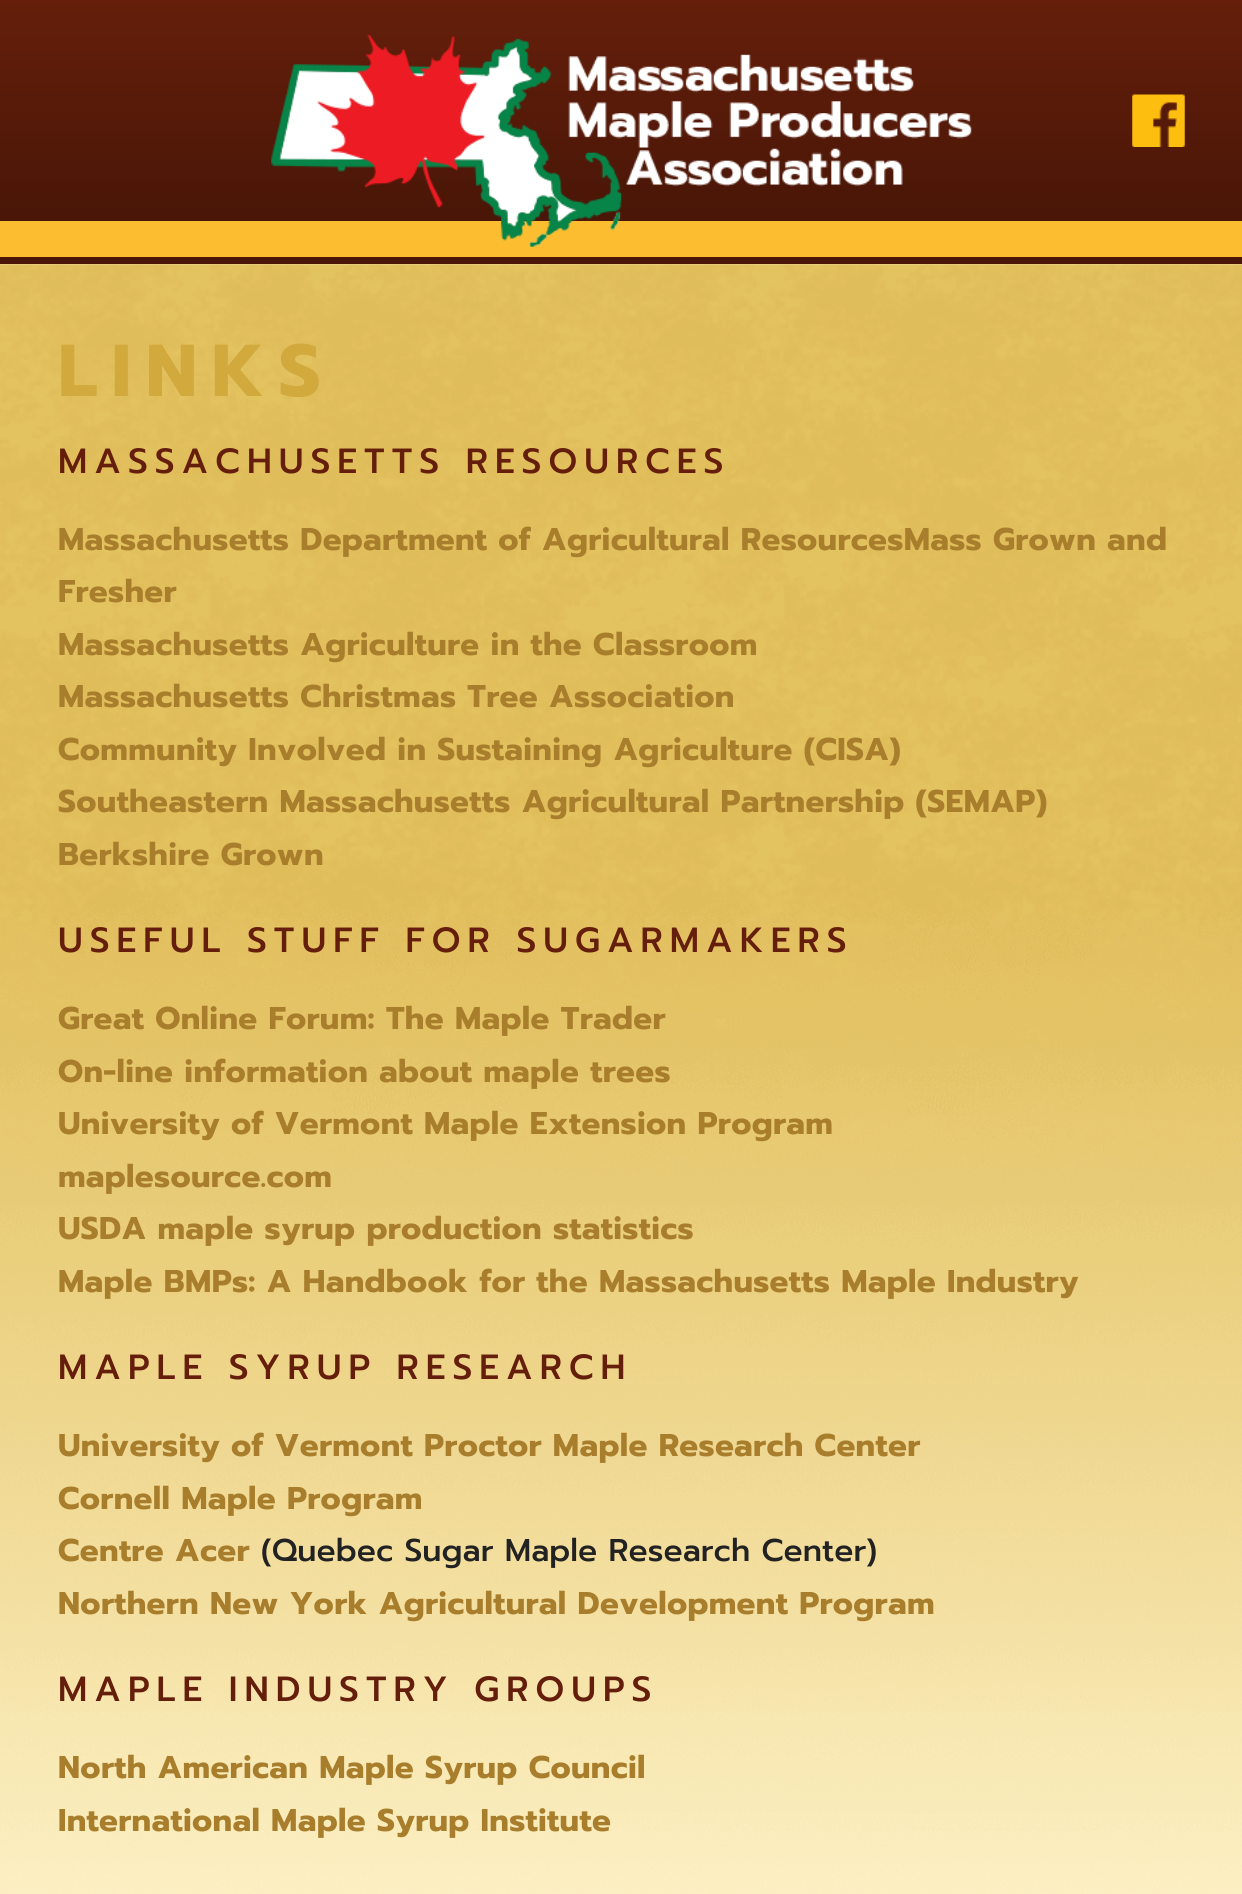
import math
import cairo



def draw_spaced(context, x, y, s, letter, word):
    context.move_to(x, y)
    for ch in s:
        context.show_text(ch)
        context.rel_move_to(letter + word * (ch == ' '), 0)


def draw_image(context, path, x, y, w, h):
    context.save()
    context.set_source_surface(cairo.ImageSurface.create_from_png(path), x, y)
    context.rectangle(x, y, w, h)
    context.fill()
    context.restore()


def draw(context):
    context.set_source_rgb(1, 1, 1)
    context.paint()
    gradient = cairo.LinearGradient(621, 0, 621, 221)
    gradient.add_color_stop_rgba(0, 101 / 255, 31 / 255, 11 / 255, 1)
    gradient.add_color_stop_rgba(1, 73 / 255, 22 / 255, 7 / 255, 1)
    context.set_source(gradient)
    context.rectangle(0, 0, 1242, 221)
    context.fill()
    context.set_source_rgb(252 / 255, 189 / 255, 49 / 255)
    context.rectangle(0, 221, 1242, 36)
    context.fill()
    draw_image(context, "images/1.png", 271, 35, 701, 212)
    draw_image(context, "images/2.png", 1132, 94, 53, 53)
    context.set_source_rgb(73 / 255, 21 / 255, 7 / 255)
    context.rectangle(0, 257, 1242, 7)
    context.fill()
    context.set_source_rgb(1, 245 / 255, 207 / 255)
    context.rectangle(0, 264, 1242, 1630)
    context.fill()
    draw_image(context, "images/3.png", 0, 264, 1242, 1630)
    context.select_font_face("Prompt", cairo.FontSlant.NORMAL, cairo.FontWeight.BOLD)
    context.set_font_size(73.5)
    context.set_source_rgb(209 / 255, 169 / 255, 60 / 255)
    draw_spaced(context, 58, 396, "LINKS", 14.5, 0)
    context.select_font_face("Prompt Medium")
    context.set_font_size(35)
    context.set_source_rgb(100 / 255, 30 / 255, 11 / 255)
    draw_spaced(context, 58, 473, "MASSACHUSETTS RESOURCES", 7, 0)
    context.select_font_face("Prompt", cairo.FontSlant.NORMAL, cairo.FontWeight.BOLD)
    context.set_font_size(31.5)
    context.set_source_rgb(168 / 255, 126 / 255, 44 / 255)
    draw_spaced(context, 58, 550, "Massachusetts Department of Agricultural ResourcesMass Grown and", 0.32, 0)
    draw_spaced(context, 58, 602, "Fresher", 0.32, 0)
    draw_spaced(context, 58, 655, "Massachusetts Agriculture in the Classroom", 0.32, 0)
    draw_spaced(context, 58, 707, "Massachusetts Christmas Tree Association", 0.32, 0)
    draw_spaced(context, 58, 760, "Community Involved in Sustaining Agriculture (CISA)", 0.32, 0)
    draw_spaced(context, 58, 812, "Southeastern Massachusetts Agricultural Partnership (SEMAP)", 0.32, 0)
    draw_spaced(context, 58, 865, "Berkshire Grown", 0.32, 0)
    context.select_font_face("Prompt Medium")
    context.set_font_size(35)
    context.set_source_rgb(100 / 255, 30 / 255, 11 / 255)
    draw_spaced(context, 58, 952, "USEFUL STUFF FOR SUGARMAKERS", 7, 0)
    context.select_font_face("Prompt", cairo.FontSlant.NORMAL, cairo.FontWeight.BOLD)
    context.set_font_size(31.5)
    context.set_source_rgb(168 / 255, 126 / 255, 44 / 255)
    draw_spaced(context, 58, 1029, "Great Online Forum: The Maple Trader", 0.32, 0)
    draw_spaced(context, 58, 1082, "On-line information about maple trees", 0.32, 0)
    draw_spaced(context, 58, 1134, "University of Vermont Maple Extension Program", 0.32, 0)
    draw_spaced(context, 58, 1187, "maplesource.com", 0.32, 0)
    draw_spaced(context, 58, 1239, "USDA maple syrup production statistics", 0.32, 0)
    draw_spaced(context, 58, 1292, "Maple BMPs: A Handbook for the Massachusetts Maple Industry", 0.32, 0)
    context.select_font_face("Prompt Medium")
    context.set_font_size(35)
    context.set_source_rgb(100 / 255, 30 / 255, 11 / 255)
    draw_spaced(context, 58, 1379, "MAPLE SYRUP RESEARCH", 7, 0)
    context.select_font_face("Prompt", cairo.FontSlant.NORMAL, cairo.FontWeight.BOLD)
    context.set_font_size(31.5)
    context.set_source_rgb(168 / 255, 126 / 255, 44 / 255)
    draw_spaced(context, 58, 1456, "University of Vermont Proctor Maple Research Center", 0.32, 0)
    draw_spaced(context, 58, 1509, "Cornell Maple Program", 0.32, 0)
    draw_spaced(context, 58, 1561, "Centre Acer", 0.32, 0)
    context.select_font_face("Prompt Medium")
    context.set_source_rgb(34 / 255, 34 / 255, 34 / 255)
    context.move_to(261, 1561)
    context.show_text("(Quebec Sugar Maple Research Center)")
    context.select_font_face("Prompt", cairo.FontSlant.NORMAL, cairo.FontWeight.BOLD)
    context.set_source_rgb(168 / 255, 126 / 255, 44 / 255)
    draw_spaced(context, 58, 1614, "Northern New York Agricultural Development Program", 0.32, 0)
    context.select_font_face("Prompt Medium")
    context.set_font_size(35)
    context.set_source_rgb(100 / 255, 30 / 255, 11 / 255)
    draw_spaced(context, 58, 1701, "MAPLE INDUSTRY GROUPS", 7, 0)
    context.select_font_face("Prompt", cairo.FontSlant.NORMAL, cairo.FontWeight.BOLD)
    context.set_font_size(31.5)
    context.set_source_rgb(168 / 255, 126 / 255, 44 / 255)
    draw_spaced(context, 58, 1778, "North American Maple Syrup Council", 0.32, 0)
    draw_spaced(context, 58, 1831, "International Maple Syrup Institute", 0.32, 0)


surface = cairo.ImageSurface(cairo.Format.RGB24, 1242, 1894)
context = cairo.Context(surface)
options = cairo.FontOptions()
options.set_hint_metrics(cairo.HintMetrics.OFF)
options.set_hint_style(cairo.HintStyle.NONE)
context.set_font_options(options)
context.set_miter_limit(4)
draw(context)
surface.write_to_png("out.png")
